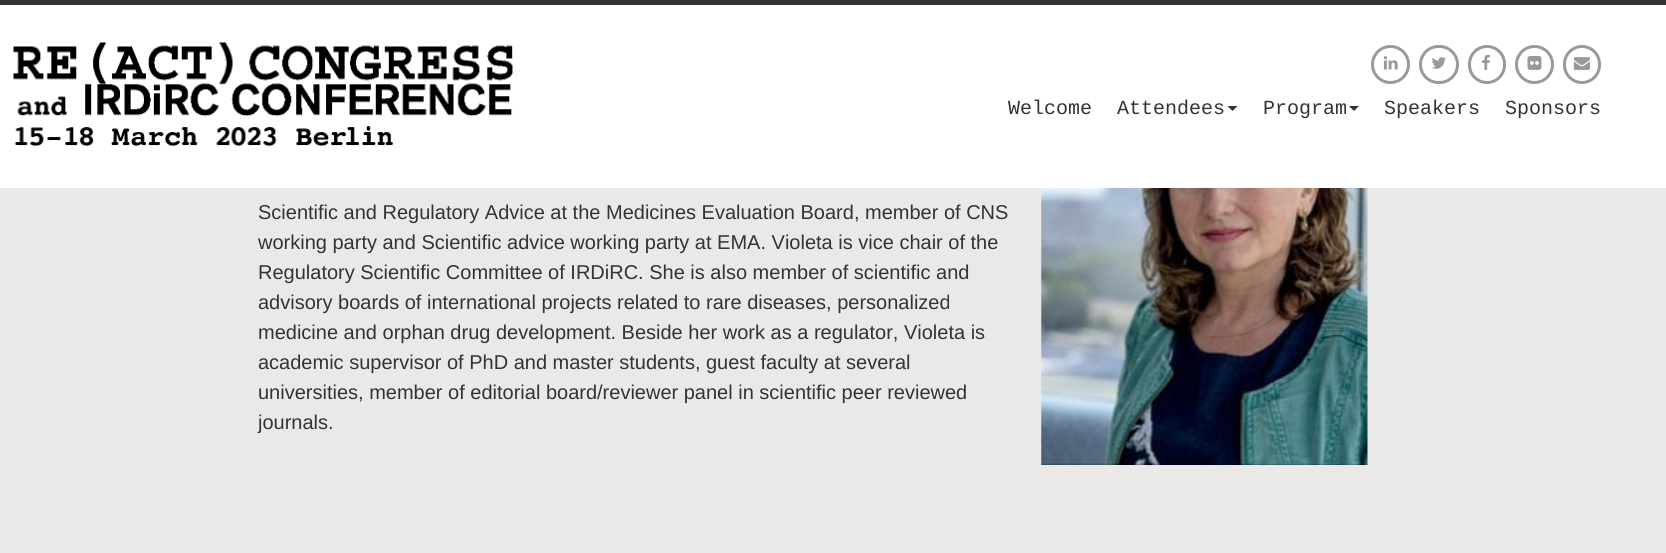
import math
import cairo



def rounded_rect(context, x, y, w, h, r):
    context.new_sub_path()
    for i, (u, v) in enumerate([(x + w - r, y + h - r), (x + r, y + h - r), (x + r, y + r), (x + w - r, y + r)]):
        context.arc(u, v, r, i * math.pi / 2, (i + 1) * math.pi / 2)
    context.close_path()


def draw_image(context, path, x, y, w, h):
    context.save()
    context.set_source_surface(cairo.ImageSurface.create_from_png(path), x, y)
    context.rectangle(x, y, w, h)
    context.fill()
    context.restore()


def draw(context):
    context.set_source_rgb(235 / 255, 233 / 255, 232 / 255)
    context.paint()
    context.set_source_rgb(1, 1, 1)
    context.rectangle(0, 5, 1666, 183)
    context.fill()
    context.set_source_rgb(51 / 255, 51 / 255, 51 / 255)
    context.rectangle(0, 0, 1666, 5)
    context.fill()
    draw_image(context, "images/1.png", 13, 42, 500, 105)
    context.arc(1390.5, 64.5, 18, 0, 2 * math.pi)
    context.set_source_rgb(153 / 255, 153 / 255, 153 / 255)
    context.set_line_width(3)
    context.stroke()
    draw_image(context, "images/2.png", 1383, 56, 15, 14)
    rounded_rect(context, 1420.5, 46.5, 37, 36, 18)
    context.stroke()
    draw_image(context, "images/3.png", 1432, 57, 14, 12)
    rounded_rect(context, 1469.5, 46.5, 35, 36, 17.5)
    context.stroke()
    draw_image(context, "images/4.png", 1482, 54, 8, 16)
    context.arc(1534.5, 64.5, 18, 0, 2 * math.pi)
    context.stroke()
    draw_image(context, "images/5.png", 1527, 56, 15, 14)
    rounded_rect(context, 1564.5, 46.5, 35, 36, 17.5)
    context.stroke()
    draw_image(context, "images/6.png", 1573, 57, 17, 13)
    context.set_source_rgb(51 / 255, 51 / 255, 51 / 255)
    context.new_path()
    context.move_to(1227.5, 106)
    context.line_to(1237.5, 106)
    context.line_to(1232.5, 111)
    context.close_path()
    context.fill()
    context.new_path()
    context.move_to(1349, 106)
    context.line_to(1359, 106)
    context.line_to(1354, 111)
    context.close_path()
    context.fill()
    draw_image(context, "images/7.png", 1041, 188, 327, 277)
    context.select_font_face("Liberation Mono")
    context.set_font_size(20)
    context.move_to(1008, 114)
    context.show_text("Welcome")
    context.move_to(1117, 114)
    context.show_text("Attendees")
    context.move_to(1263, 114)
    context.show_text("Program")
    context.move_to(1384, 114)
    context.show_text("Speakers")
    context.move_to(1505, 114)
    context.show_text("Sponsors")
    context.select_font_face("Liberation Sans")
    context.move_to(258, 219)
    context.show_text("Scientific and Regulatory Advice at the Medicines Evaluation Board, member of CNS")
    context.move_to(258, 249)
    context.show_text("working party and Scientific advice working party at EMA. Violeta is vice chair of the")
    context.move_to(258, 279)
    context.show_text("Regulatory Scientific Committee of IRDiRC. She is also member of scientific and")
    context.move_to(258, 309)
    context.show_text("advisory boards of international projects related to rare diseases, personalized")
    context.move_to(258, 339)
    context.show_text("medicine and orphan drug development. Beside her work as a regulator, Violeta is")
    context.move_to(258, 369)
    context.show_text("academic supervisor of PhD and master students, guest faculty at several")
    context.move_to(258, 399)
    context.show_text("universities, member of editorial board/reviewer panel in scientific peer reviewed")
    context.move_to(258, 429)
    context.show_text("journals.")


surface = cairo.ImageSurface(cairo.Format.RGB24, 1666, 553)
context = cairo.Context(surface)
options = cairo.FontOptions()
options.set_hint_metrics(cairo.HintMetrics.OFF)
options.set_hint_style(cairo.HintStyle.NONE)
context.set_font_options(options)
context.set_miter_limit(4)
draw(context)
surface.write_to_png("out.png")
